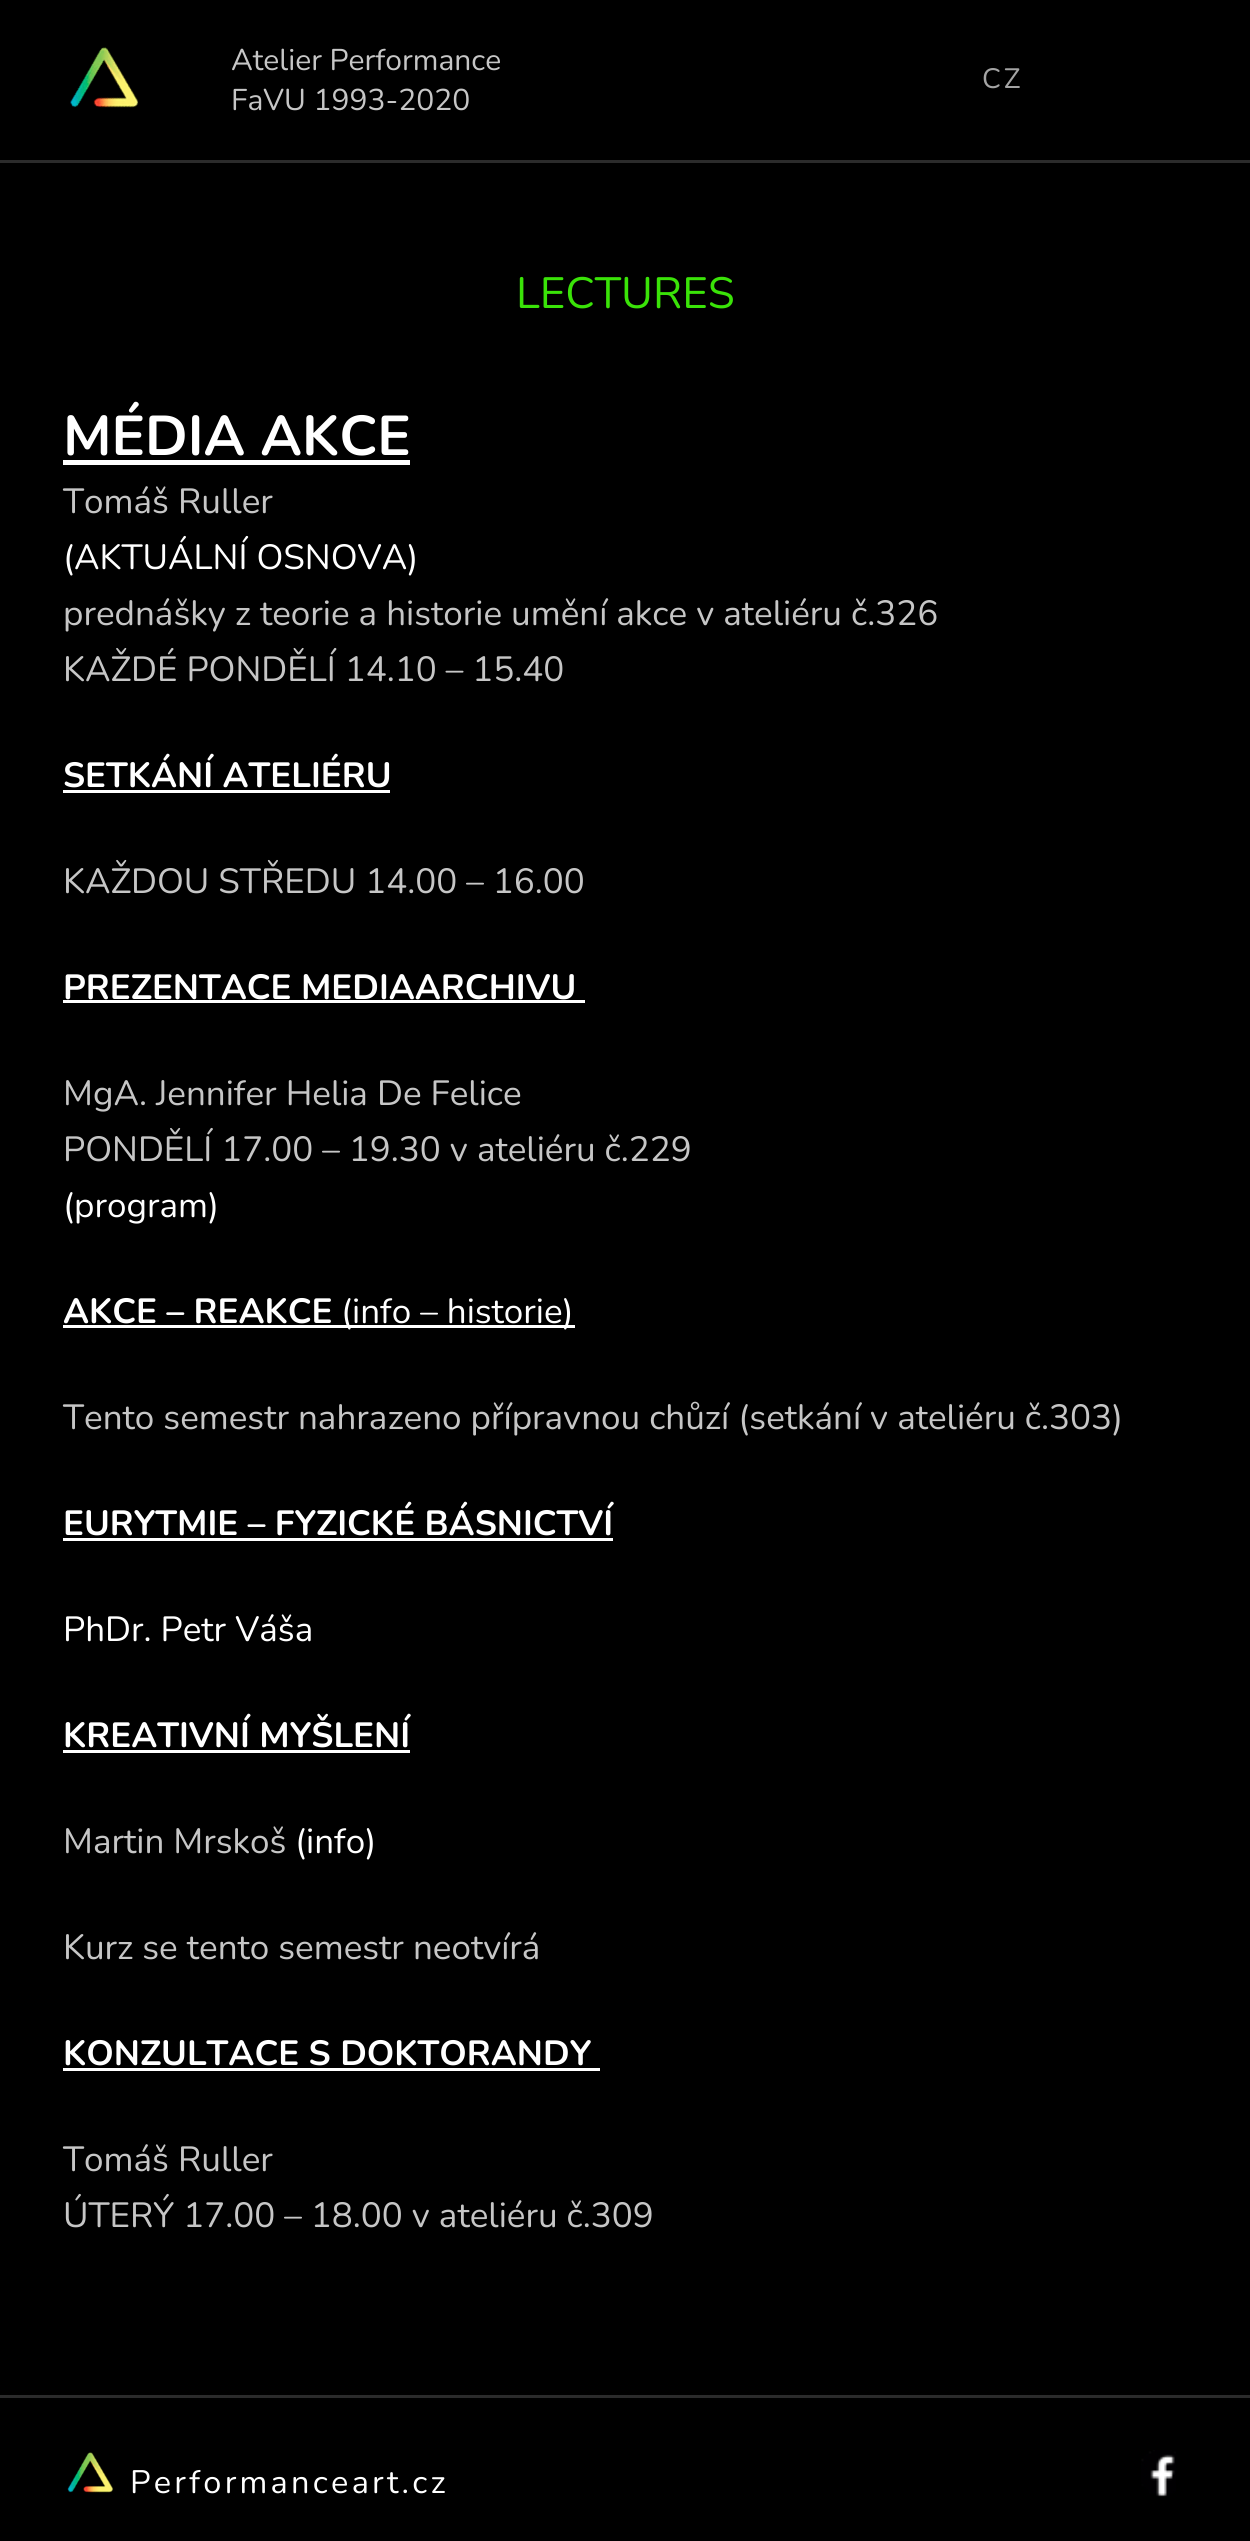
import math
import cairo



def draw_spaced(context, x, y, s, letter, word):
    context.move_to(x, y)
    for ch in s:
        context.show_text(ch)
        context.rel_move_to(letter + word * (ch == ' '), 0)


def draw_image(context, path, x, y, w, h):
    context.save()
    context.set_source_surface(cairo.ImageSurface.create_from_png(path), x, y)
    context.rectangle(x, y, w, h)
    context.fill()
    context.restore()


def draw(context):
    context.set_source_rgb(0, 0, 0)
    context.paint()
    context.set_source_rgb(43 / 255, 43 / 255, 43 / 255)
    context.rectangle(0, 160, 1250, 3)
    context.fill()
    draw_image(context, "images/1.png", 70, 47, 69, 61)
    context.set_source_rgb(1, 1, 1)
    context.rectangle(63, 460, 347, 5)
    context.fill()
    context.rectangle(63, 790, 327, 3)
    context.fill()
    context.rectangle(63, 1000, 522, 3)
    context.fill()
    context.rectangle(63, 1325, 512, 3)
    context.fill()
    context.rectangle(63, 1538, 550, 3)
    context.fill()
    context.rectangle(63, 1750, 347, 3)
    context.fill()
    context.rectangle(63, 2068, 537, 3)
    context.fill()
    context.set_source_rgb(43 / 255, 43 / 255, 43 / 255)
    context.rectangle(0, 2395, 1250, 3)
    context.fill()
    draw_image(context, "images/2.png", 67, 2452, 47, 41)
    draw_image(context, "images/3.png", 1141, 2450, 35, 47)
    context.select_font_face("Nunito")
    context.set_font_size(30)
    context.set_source_rgb(198 / 255, 198 / 255, 198 / 255)
    context.move_to(231, 70)
    context.show_text("Atelier Performance")
    context.move_to(231, 110)
    context.show_text("FaVU 1993-2020")
    context.set_font_size(28)
    context.set_source_rgb(164 / 255, 164 / 255, 164 / 255)
    draw_spaced(context, 982, 88, "CZ", 3, 0)
    context.set_font_size(43.75)
    context.set_source_rgb(58 / 255, 227 / 255, 8 / 255)
    context.move_to(516, 308)
    context.show_text("LECTURES")
    context.select_font_face("Nunito", cairo.FontSlant.NORMAL, cairo.FontWeight.BOLD)
    context.set_font_size(56)
    context.set_source_rgb(1, 1, 1)
    context.move_to(63, 455)
    context.show_text("MÉDIA AKCE")
    context.select_font_face("Nunito")
    context.set_font_size(35)
    context.set_source_rgb(198 / 255, 198 / 255, 198 / 255)
    context.move_to(63, 513)
    context.show_text("Tomáš Ruller")
    context.set_source_rgb(1, 1, 1)
    context.move_to(63, 569)
    context.show_text("(AKTUÁLNÍ OSNOVA)")
    context.set_source_rgb(198 / 255, 198 / 255, 198 / 255)
    context.move_to(63, 625)
    context.show_text("prednášky z teorie a historie umění akce v ateliéru č.326")
    context.move_to(63, 681)
    context.show_text("KAŽDÉ PONDĚLÍ 14.10 – 15.40")
    context.select_font_face("Nunito", cairo.FontSlant.NORMAL, cairo.FontWeight.BOLD)
    context.set_source_rgb(1, 1, 1)
    context.move_to(63, 787)
    context.show_text("SETKÁNÍ ATELIÉRU")
    context.select_font_face("Nunito")
    context.set_source_rgb(198 / 255, 198 / 255, 198 / 255)
    context.move_to(63, 893)
    context.show_text("KAŽDOU STŘEDU 14.00 – 16.00")
    context.select_font_face("Nunito", cairo.FontSlant.NORMAL, cairo.FontWeight.BOLD)
    context.set_source_rgb(1, 1, 1)
    context.move_to(63, 999)
    context.show_text("PREZENTACE MEDIAARCHIVU")
    context.select_font_face("Nunito")
    context.set_source_rgb(198 / 255, 198 / 255, 198 / 255)
    context.move_to(63, 1105)
    context.show_text("MgA. Jennifer Helia De Felice")
    context.move_to(63, 1161)
    context.show_text("PONDĚLÍ 17.00 – 19.30 v ateliéru č.229")
    context.set_source_rgb(1, 1, 1)
    context.move_to(63, 1217)
    context.show_text("(program)")
    context.select_font_face("Nunito", cairo.FontSlant.NORMAL, cairo.FontWeight.BOLD)
    context.move_to(63, 1323)
    context.show_text("AKCE – REAKCE")
    context.select_font_face("Nunito")
    context.move_to(341, 1323)
    context.show_text("(info – historie)")
    context.set_source_rgb(198 / 255, 198 / 255, 198 / 255)
    context.move_to(63, 1429)
    context.show_text("Tento semestr nahrazeno přípravnou chůzí (setkání v ateliéru č.303)")
    context.select_font_face("Nunito", cairo.FontSlant.NORMAL, cairo.FontWeight.BOLD)
    context.set_source_rgb(1, 1, 1)
    context.move_to(63, 1535)
    context.show_text("EURYTMIE – FYZICKÉ BÁSNICTVÍ")
    context.select_font_face("Nunito")
    context.move_to(63, 1641)
    context.show_text("PhDr. Petr Váša")
    context.select_font_face("Nunito", cairo.FontSlant.NORMAL, cairo.FontWeight.BOLD)
    context.move_to(63, 1747)
    context.show_text("KREATIVNÍ MYŠLENÍ")
    context.select_font_face("Nunito")
    context.set_source_rgb(198 / 255, 198 / 255, 198 / 255)
    context.move_to(63, 1853)
    context.show_text("Martin Mrskoš")
    context.set_source_rgb(1, 1, 1)
    context.move_to(295, 1853)
    context.show_text("(info)")
    context.set_source_rgb(198 / 255, 198 / 255, 198 / 255)
    context.move_to(63, 1959)
    context.show_text("Kurz se tento semestr neotvírá")
    context.select_font_face("Nunito", cairo.FontSlant.NORMAL, cairo.FontWeight.BOLD)
    context.set_source_rgb(1, 1, 1)
    context.move_to(63, 2065)
    context.show_text("KONZULTACE S DOKTORANDY")
    context.select_font_face("Nunito")
    context.set_source_rgb(198 / 255, 198 / 255, 198 / 255)
    context.move_to(63, 2171)
    context.show_text("Tomáš Ruller")
    context.move_to(63, 2227)
    context.show_text("ÚTERÝ 17.00 – 18.00 v ateliéru č.309")
    context.set_font_size(32.5)
    context.set_source_rgb(1, 1, 1)
    draw_spaced(context, 130, 2493, "Performanceart.cz", 3.25, 0)


surface = cairo.ImageSurface(cairo.Format.RGB24, 1250, 2541)
context = cairo.Context(surface)
options = cairo.FontOptions()
options.set_hint_metrics(cairo.HintMetrics.OFF)
options.set_hint_style(cairo.HintStyle.NONE)
context.set_font_options(options)
context.set_miter_limit(4)
draw(context)
surface.write_to_png("out.png")
